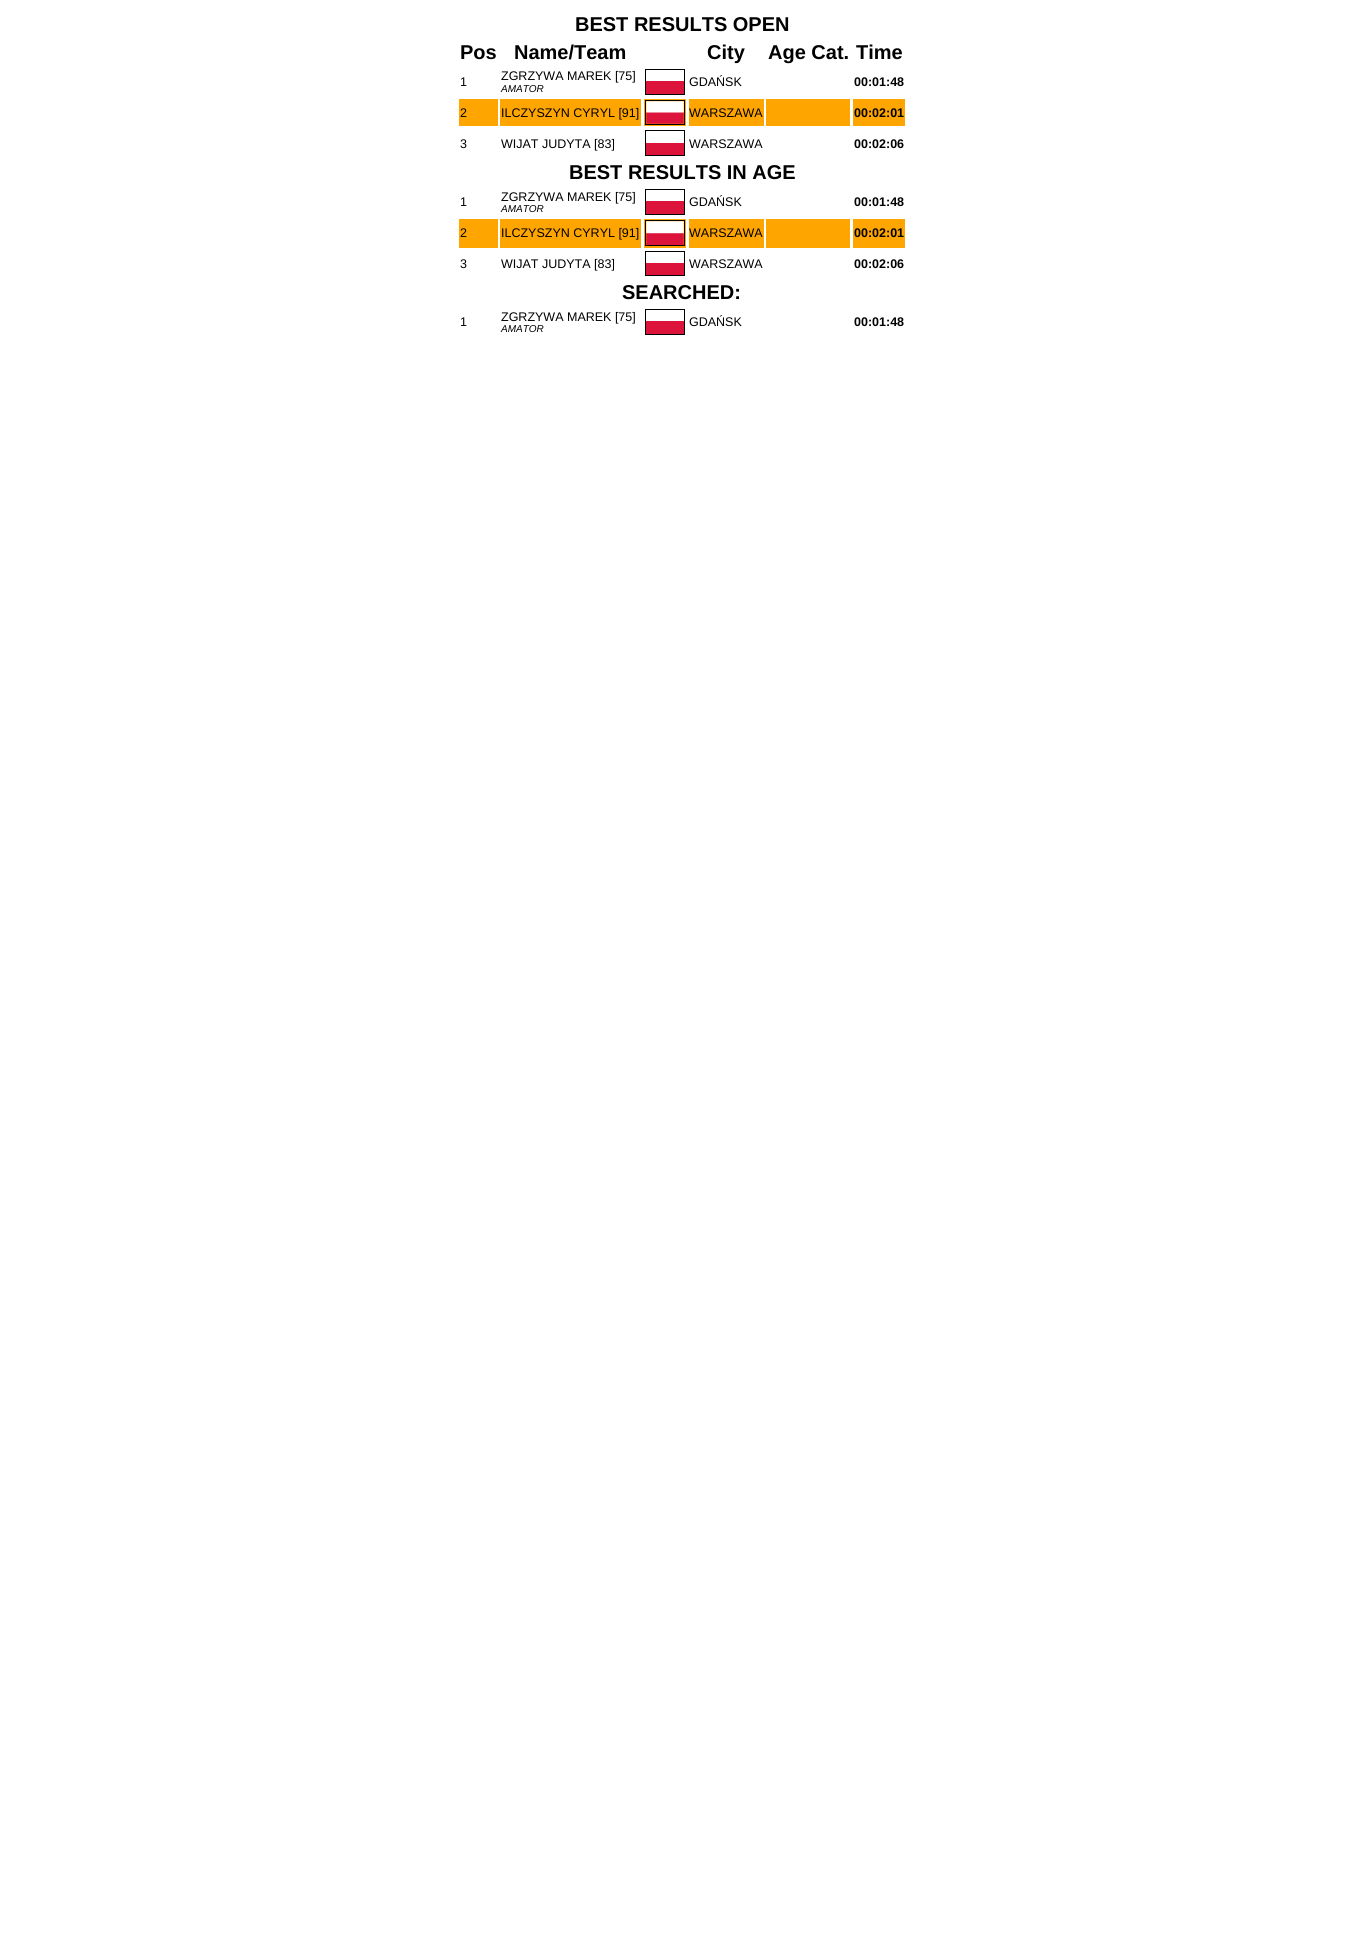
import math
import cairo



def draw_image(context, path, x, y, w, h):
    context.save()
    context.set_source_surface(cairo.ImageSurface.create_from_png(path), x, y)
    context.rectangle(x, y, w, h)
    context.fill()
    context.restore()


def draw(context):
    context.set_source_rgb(1, 1, 1)
    context.paint()
    context.rectangle(645.5, 69.5, 39, 25)
    context.set_source_rgb(0, 0, 0)
    context.set_line_width(1)
    context.stroke()
    context.set_source_rgb(220 / 255, 20 / 255, 60 / 255)
    context.rectangle(646, 81, 38, 13)
    context.fill()
    context.set_source_rgb(1, 165 / 255, 0)
    context.rectangle(459, 99, 39, 27)
    context.fill()
    context.rectangle(500, 99, 141, 27)
    context.fill()
    context.rectangle(644, 99, 42, 27)
    context.fill()
    context.rectangle(645.5, 100.5, 39, 24)
    context.set_source_rgb(0, 0, 0)
    context.stroke()
    draw_image(context, "images/1.png", 646, 101, 38, 23)
    context.set_source_rgb(1, 165 / 255, 0)
    context.rectangle(689, 99, 75, 27)
    context.fill()
    context.rectangle(766, 99, 84, 27)
    context.fill()
    context.rectangle(853, 99, 52, 27)
    context.fill()
    context.rectangle(645.5, 130.5, 39, 25)
    context.set_source_rgb(0, 0, 0)
    context.stroke()
    context.set_source_rgb(220 / 255, 20 / 255, 60 / 255)
    context.rectangle(646, 143, 38, 12)
    context.fill()
    context.rectangle(645.5, 189.5, 39, 25)
    context.set_source_rgb(0, 0, 0)
    context.stroke()
    context.set_source_rgb(220 / 255, 20 / 255, 60 / 255)
    context.rectangle(646, 201, 38, 13)
    context.fill()
    context.set_source_rgb(1, 165 / 255, 0)
    context.rectangle(459, 219, 39, 29)
    context.fill()
    context.rectangle(500, 219, 141, 29)
    context.fill()
    context.rectangle(644, 219, 42, 29)
    context.fill()
    context.rectangle(645.5, 220.5, 39, 25)
    context.set_source_rgb(0, 0, 0)
    context.stroke()
    draw_image(context, "images/2.png", 646, 221, 38, 24)
    context.set_source_rgb(1, 165 / 255, 0)
    context.rectangle(689, 219, 75, 29)
    context.fill()
    context.rectangle(766, 219, 84, 29)
    context.fill()
    context.rectangle(853, 219, 52, 29)
    context.fill()
    context.rectangle(645.5, 251.5, 39, 24)
    context.set_source_rgb(0, 0, 0)
    context.stroke()
    context.set_source_rgb(220 / 255, 20 / 255, 60 / 255)
    context.rectangle(646, 263, 38, 12)
    context.fill()
    context.rectangle(645.5, 309.5, 39, 25)
    context.set_source_rgb(0, 0, 0)
    context.stroke()
    context.set_source_rgb(220 / 255, 20 / 255, 60 / 255)
    context.rectangle(646, 321, 38, 13)
    context.fill()
    context.select_font_face("Liberation Sans", cairo.FontSlant.NORMAL, cairo.FontWeight.BOLD)
    context.set_font_size(20)
    context.set_source_rgb(0, 0, 0)
    context.move_to(575, 31)
    context.show_text("BEST RESULTS OPEN")
    context.move_to(460, 59)
    context.show_text("Pos")
    context.move_to(514, 59)
    context.show_text("Name/Team")
    context.move_to(707, 59)
    context.show_text("City")
    context.move_to(768, 59)
    context.show_text("Age Cat.")
    context.move_to(856, 59)
    context.show_text("Time")
    context.select_font_face("Liberation Sans")
    context.set_font_size(12.5)
    context.move_to(460, 86)
    context.show_text("1")
    context.move_to(501, 80)
    context.show_text("ZGRZYWA MAREK [75]")
    context.select_font_face("Liberation Sans", cairo.FontSlant.ITALIC)
    context.set_font_size(10)
    context.move_to(501, 92)
    context.show_text("AMATOR")
    context.select_font_face("Liberation Sans")
    context.set_font_size(12.5)
    context.move_to(689, 86)
    context.show_text("GDAŃSK")
    context.select_font_face("Liberation Sans", cairo.FontSlant.NORMAL, cairo.FontWeight.BOLD)
    context.move_to(854, 86)
    context.show_text("00:01:48")
    context.select_font_face("Liberation Sans")
    context.move_to(460, 117)
    context.show_text("2")
    context.move_to(501, 117)
    context.show_text("ILCZYSZYN CYRYL [91]")
    context.move_to(689, 117)
    context.show_text("WARSZAWA")
    context.select_font_face("Liberation Sans", cairo.FontSlant.NORMAL, cairo.FontWeight.BOLD)
    context.move_to(854, 117)
    context.show_text("00:02:01")
    context.select_font_face("Liberation Sans")
    context.move_to(460, 148)
    context.show_text("3")
    context.move_to(501, 148)
    context.show_text("WIJAT JUDYTA [83]")
    context.move_to(689, 148)
    context.show_text("WARSZAWA")
    context.select_font_face("Liberation Sans", cairo.FontSlant.NORMAL, cairo.FontWeight.BOLD)
    context.move_to(854, 148)
    context.show_text("00:02:06")
    context.set_font_size(20)
    context.move_to(569, 179)
    context.show_text("BEST RESULTS IN AGE")
    context.select_font_face("Liberation Sans")
    context.set_font_size(12.5)
    context.move_to(460, 206)
    context.show_text("1")
    context.move_to(501, 201)
    context.show_text("ZGRZYWA MAREK [75]")
    context.select_font_face("Liberation Sans", cairo.FontSlant.ITALIC)
    context.set_font_size(10)
    context.move_to(501, 212)
    context.show_text("AMATOR")
    context.select_font_face("Liberation Sans")
    context.set_font_size(12.5)
    context.move_to(689, 206)
    context.show_text("GDAŃSK")
    context.select_font_face("Liberation Sans", cairo.FontSlant.NORMAL, cairo.FontWeight.BOLD)
    context.move_to(854, 206)
    context.show_text("00:01:48")
    context.select_font_face("Liberation Sans")
    context.move_to(460, 237)
    context.show_text("2")
    context.move_to(501, 237)
    context.show_text("ILCZYSZYN CYRYL [91]")
    context.move_to(689, 237)
    context.show_text("WARSZAWA")
    context.select_font_face("Liberation Sans", cairo.FontSlant.NORMAL, cairo.FontWeight.BOLD)
    context.move_to(854, 237)
    context.show_text("00:02:01")
    context.select_font_face("Liberation Sans")
    context.move_to(460, 268)
    context.show_text("3")
    context.move_to(501, 268)
    context.show_text("WIJAT JUDYTA [83]")
    context.move_to(689, 268)
    context.show_text("WARSZAWA")
    context.select_font_face("Liberation Sans", cairo.FontSlant.NORMAL, cairo.FontWeight.BOLD)
    context.move_to(854, 268)
    context.show_text("00:02:06")
    context.set_font_size(20)
    context.move_to(622, 299)
    context.show_text("SEARCHED:")
    context.select_font_face("Liberation Sans")
    context.set_font_size(12.5)
    context.move_to(460, 326)
    context.show_text("1")
    context.move_to(501, 321)
    context.show_text("ZGRZYWA MAREK [75]")
    context.select_font_face("Liberation Sans", cairo.FontSlant.ITALIC)
    context.set_font_size(10)
    context.move_to(501, 332)
    context.show_text("AMATOR")
    context.select_font_face("Liberation Sans")
    context.set_font_size(12.5)
    context.move_to(689, 326)
    context.show_text("GDAŃSK")
    context.select_font_face("Liberation Sans", cairo.FontSlant.NORMAL, cairo.FontWeight.BOLD)
    context.move_to(854, 326)
    context.show_text("00:01:48")


surface = cairo.ImageSurface(cairo.Format.RGB24, 1363, 1945)
context = cairo.Context(surface)
options = cairo.FontOptions()
options.set_hint_metrics(cairo.HintMetrics.OFF)
options.set_hint_style(cairo.HintStyle.NONE)
context.set_font_options(options)
context.set_miter_limit(4)
draw(context)
surface.write_to_png("out.png")
